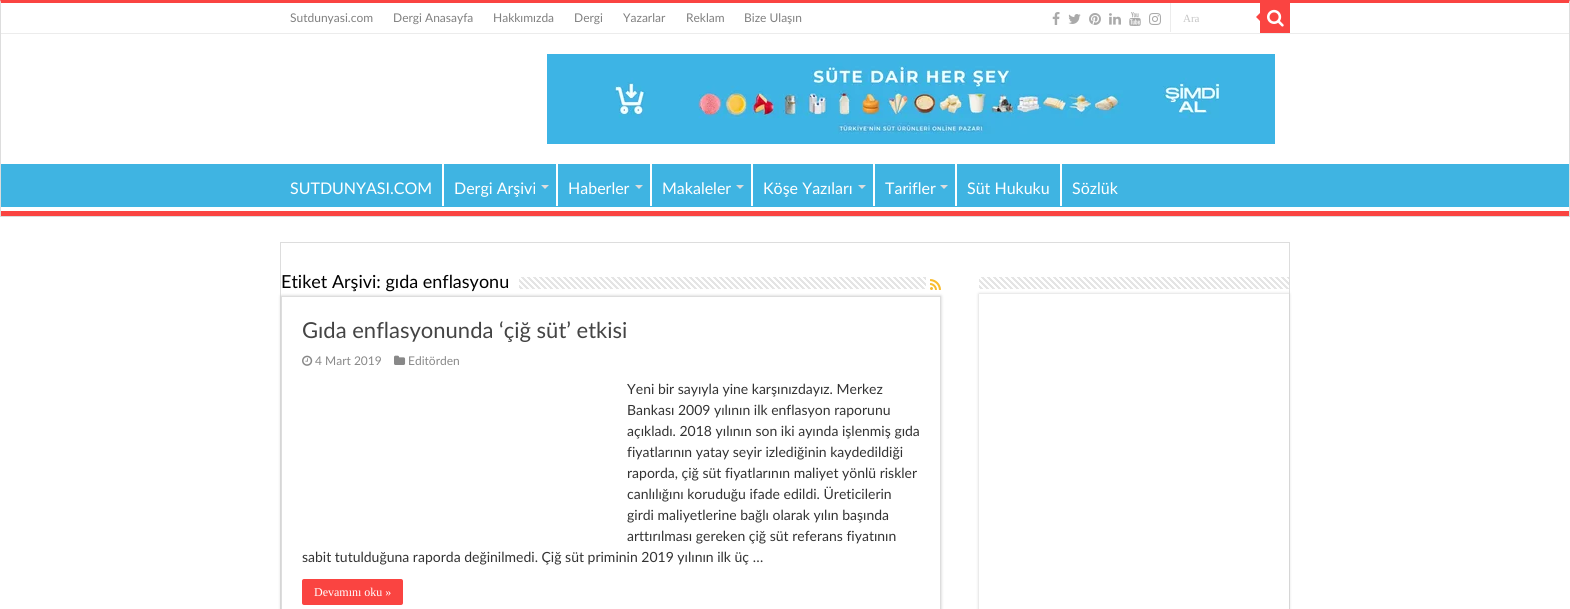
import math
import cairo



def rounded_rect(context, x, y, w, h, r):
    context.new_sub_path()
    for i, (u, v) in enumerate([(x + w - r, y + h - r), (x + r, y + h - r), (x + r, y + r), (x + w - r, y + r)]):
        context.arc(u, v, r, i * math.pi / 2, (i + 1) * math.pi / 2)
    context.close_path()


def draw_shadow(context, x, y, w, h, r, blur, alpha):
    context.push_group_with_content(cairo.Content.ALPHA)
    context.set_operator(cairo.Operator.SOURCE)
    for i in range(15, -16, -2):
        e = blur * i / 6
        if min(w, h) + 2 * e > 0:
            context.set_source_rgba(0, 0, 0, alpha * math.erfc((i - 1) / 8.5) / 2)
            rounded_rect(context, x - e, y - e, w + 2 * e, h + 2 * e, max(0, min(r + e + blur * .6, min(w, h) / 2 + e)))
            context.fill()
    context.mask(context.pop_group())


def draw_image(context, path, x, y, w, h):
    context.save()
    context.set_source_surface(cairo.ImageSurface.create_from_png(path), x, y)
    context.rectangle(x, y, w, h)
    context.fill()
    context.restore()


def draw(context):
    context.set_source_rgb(1, 1, 1)
    context.paint()
    context.set_source_rgb(250 / 255, 68 / 255, 65 / 255)
    context.new_path()
    context.move_to(0, 0)
    context.line_to(1570, 0)
    context.line_to(1569, 3)
    context.line_to(1, 3)
    context.close_path()
    context.fill()
    context.set_source_rgb(221 / 255, 221 / 255, 221 / 255)
    context.new_path()
    context.move_to(1570, 0)
    context.line_to(1570, 217)
    context.line_to(1569, 216)
    context.line_to(1569, 3)
    context.close_path()
    context.fill()
    context.rectangle(0, 216, 1570, 1)
    context.fill()
    context.new_path()
    context.move_to(0, 217)
    context.line_to(0, 0)
    context.line_to(1, 3)
    context.line_to(1, 216)
    context.close_path()
    context.fill()
    context.set_source_rgb(236 / 255, 236 / 255, 236 / 255)
    context.rectangle(1, 33, 1568, 1)
    context.fill()
    draw_image(context, "images/1.png", 1052, 12, 8, 13)
    draw_image(context, "images/2.png", 1068, 14, 13, 10)
    draw_image(context, "images/3.png", 1089, 13, 12, 12)
    draw_image(context, "images/4.png", 1109, 13, 12, 12)
    draw_image(context, "images/5.png", 1129, 12, 12, 14)
    draw_image(context, "images/6.png", 1149, 13, 12, 12)
    context.rectangle(1170, 3, 1, 29)
    context.fill()
    context.set_source_rgb(250 / 255, 68 / 255, 65 / 255)
    context.rectangle(1260, 3, 30, 30)
    context.fill()
    draw_image(context, "images/7.png", 1267, 9, 17, 18)
    context.new_path()
    context.move_to(1260, 13)
    context.line_to(1260, 21)
    context.line_to(1256, 17)
    context.close_path()
    context.fill()
    draw_image(context, "images/8.png", 547, 54, 728, 90)
    context.set_source_rgb(63 / 255, 180 / 255, 226 / 255)
    context.rectangle(1, 164, 1568, 43)
    context.fill()
    context.set_source_rgb(250 / 255, 68 / 255, 65 / 255)
    context.rectangle(1, 211, 1568, 5)
    context.fill()
    context.set_source_rgb(1, 1, 1)
    context.rectangle(442, 164, 2, 42)
    context.fill()
    context.set_source_rgb(221 / 255, 221 / 255, 221 / 255)
    context.new_path()
    context.move_to(541, 185)
    context.line_to(549, 185)
    context.line_to(545, 189)
    context.close_path()
    context.fill()
    context.set_source_rgb(1, 1, 1)
    context.rectangle(556, 164, 2, 42)
    context.fill()
    context.set_source_rgb(221 / 255, 221 / 255, 221 / 255)
    context.new_path()
    context.move_to(635, 185)
    context.line_to(643, 185)
    context.line_to(639, 189)
    context.close_path()
    context.fill()
    context.set_source_rgb(1, 1, 1)
    context.rectangle(650, 164, 2, 42)
    context.fill()
    context.set_source_rgb(221 / 255, 221 / 255, 221 / 255)
    context.new_path()
    context.move_to(736, 185)
    context.line_to(744, 185)
    context.line_to(740, 189)
    context.close_path()
    context.fill()
    context.set_source_rgb(1, 1, 1)
    context.rectangle(751, 164, 2, 42)
    context.fill()
    context.set_source_rgb(221 / 255, 221 / 255, 221 / 255)
    context.new_path()
    context.move_to(858, 185)
    context.line_to(866, 185)
    context.line_to(862, 189)
    context.close_path()
    context.fill()
    context.set_source_rgb(1, 1, 1)
    context.rectangle(873, 164, 2, 42)
    context.fill()
    context.set_source_rgb(221 / 255, 221 / 255, 221 / 255)
    context.new_path()
    context.move_to(940, 185)
    context.line_to(948, 185)
    context.line_to(944, 189)
    context.close_path()
    context.fill()
    context.set_source_rgb(1, 1, 1)
    context.rectangle(955, 164, 2, 42)
    context.fill()
    context.rectangle(1060, 164, 2, 42)
    context.fill()
    context.rectangle(280.5, 242.5, 1009, 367)
    context.set_source_rgb(221 / 255, 221 / 255, 221 / 255)
    context.set_line_width(1)
    context.stroke()
    draw_image(context, "images/9.png", 519, 277, 407, 12)
    draw_image(context, "images/10.png", 930, 279, 11, 11)
    context.save()
    context.set_fill_rule(cairo.FillRule.EVEN_ODD)
    context.new_path()
    context.move_to(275, 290)
    context.line_to(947, 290)
    context.line_to(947, 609)
    context.line_to(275, 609)
    context.close_path()
    context.move_to(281, 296)
    context.line_to(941, 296)
    context.line_to(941, 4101)
    context.line_to(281, 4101)
    context.close_path()
    context.clip()
    context.set_source_rgb(202 / 255, 202 / 255, 202 / 255)
    draw_shadow(context, 281, 296, 660, 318, 0, 1.5, 1)
    context.restore()
    context.rectangle(281, 296, 660, 1)
    context.fill()
    context.new_path()
    context.move_to(941, 296)
    context.line_to(941, 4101)
    context.line_to(940, 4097)
    context.line_to(940, 297)
    context.close_path()
    context.fill()
    context.new_path()
    context.move_to(281, 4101)
    context.line_to(281, 296)
    context.line_to(282, 297)
    context.line_to(282, 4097)
    context.close_path()
    context.fill()
    draw_image(context, "images/11.png", 302, 355, 11, 11)
    draw_image(context, "images/12.png", 394, 355, 12, 10)
    context.set_source_rgb(250 / 255, 68 / 255, 65 / 255)
    rounded_rect(context, 302, 579, 101, 26, 2)
    context.fill()
    context.save()
    context.set_fill_rule(cairo.FillRule.EVEN_ODD)
    context.new_path()
    context.move_to(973, 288)
    context.line_to(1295, 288)
    context.line_to(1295, 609)
    context.line_to(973, 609)
    context.close_path()
    context.move_to(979, 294)
    context.line_to(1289, 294)
    context.line_to(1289, 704)
    context.line_to(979, 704)
    context.close_path()
    context.clip()
    context.set_source_rgb(202 / 255, 202 / 255, 202 / 255)
    draw_shadow(context, 979, 294, 310, 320, 0, 1.5, 1)
    context.restore()
    draw_image(context, "images/13.png", 979, 277, 310, 12)
    context.select_font_face("Lato")
    context.set_font_size(12)
    context.set_source_rgb(128 / 255, 128 / 255, 128 / 255)
    context.move_to(290, 22)
    context.show_text("Sutdunyasi.com")
    context.move_to(393, 22)
    context.show_text("Dergi Anasayfa")
    context.move_to(493, 22)
    context.show_text("Hakkımızda")
    context.move_to(574, 22)
    context.show_text("Dergi")
    context.move_to(623, 22)
    context.show_text("Yazarlar")
    context.move_to(686, 22)
    context.show_text("Reklam")
    context.move_to(744, 22)
    context.show_text("Bize Ulaşın")
    context.select_font_face("Liberation Serif")
    context.set_font_size(11)
    context.set_source_rgb(197 / 255, 197 / 255, 197 / 255)
    context.move_to(1183, 22)
    context.show_text("Ara")
    context.select_font_face("Lato")
    context.set_font_size(16)
    context.set_source_rgb(1, 1, 1)
    context.move_to(290, 194)
    context.show_text("SUTDUNYASI.COM")
    context.move_to(454, 194)
    context.show_text("Dergi Arşivi")
    context.move_to(568, 194)
    context.show_text("Haberler")
    context.move_to(662, 194)
    context.show_text("Makaleler")
    context.move_to(763, 194)
    context.show_text("Köşe Yazıları")
    context.move_to(885, 194)
    context.show_text("Tarifler")
    context.move_to(967, 194)
    context.show_text("Süt Hukuku")
    context.move_to(1072, 194)
    context.show_text("Sözlük")
    context.set_font_size(18)
    context.set_source_rgb(0, 0, 0)
    context.move_to(281, 288)
    context.show_text("Etiket Arşivi: gıda enflasyonu")
    context.set_font_size(22)
    context.set_source_rgb(68 / 255, 68 / 255, 68 / 255)
    context.move_to(302, 338)
    context.show_text("Gıda enflasyonunda ‘çiğ süt’ etkisi")
    context.set_font_size(12)
    context.set_source_rgb(136 / 255, 136 / 255, 136 / 255)
    context.move_to(315, 365)
    context.show_text("4 Mart 2019")
    context.move_to(408, 365)
    context.show_text("Editörden")
    context.set_font_size(14)
    context.set_source_rgb(51 / 255, 51 / 255, 51 / 255)
    context.move_to(627, 394)
    context.show_text("Yeni bir sayıyla yine karşınızdayız. Merkez")
    context.move_to(627, 415)
    context.show_text("Bankası 2009 yılının ilk enflasyon raporunu")
    context.move_to(627, 436)
    context.show_text("açıkladı. 2018 yılının son iki ayında işlenmiş gıda")
    context.move_to(627, 457)
    context.show_text("fiyatlarının yatay seyir izlediğinin kaydedildiği")
    context.move_to(627, 478)
    context.show_text("raporda, çiğ süt fiyatlarının maliyet yönlü riskler")
    context.move_to(627, 499)
    context.show_text("canlılığını koruduğu ifade edildi. Üreticilerin")
    context.move_to(627, 520)
    context.show_text("girdi maliyetlerine bağlı olarak yılın başında")
    context.move_to(627, 541)
    context.show_text("arttırılması gereken çiğ süt referans fiyatının")
    context.move_to(302, 562)
    context.show_text("sabit tutulduğuna raporda değinilmedi. Çiğ süt priminin 2019 yılının ilk üç …")
    context.select_font_face("Liberation Serif")
    context.set_font_size(12)
    context.set_source_rgb(1, 1, 1)
    context.move_to(314, 596)
    context.show_text("Devamını oku »")


surface = cairo.ImageSurface(cairo.Format.RGB24, 1570, 609)
context = cairo.Context(surface)
options = cairo.FontOptions()
options.set_hint_metrics(cairo.HintMetrics.OFF)
options.set_hint_style(cairo.HintStyle.NONE)
context.set_font_options(options)
context.set_miter_limit(4)
draw(context)
surface.write_to_png("out.png")
